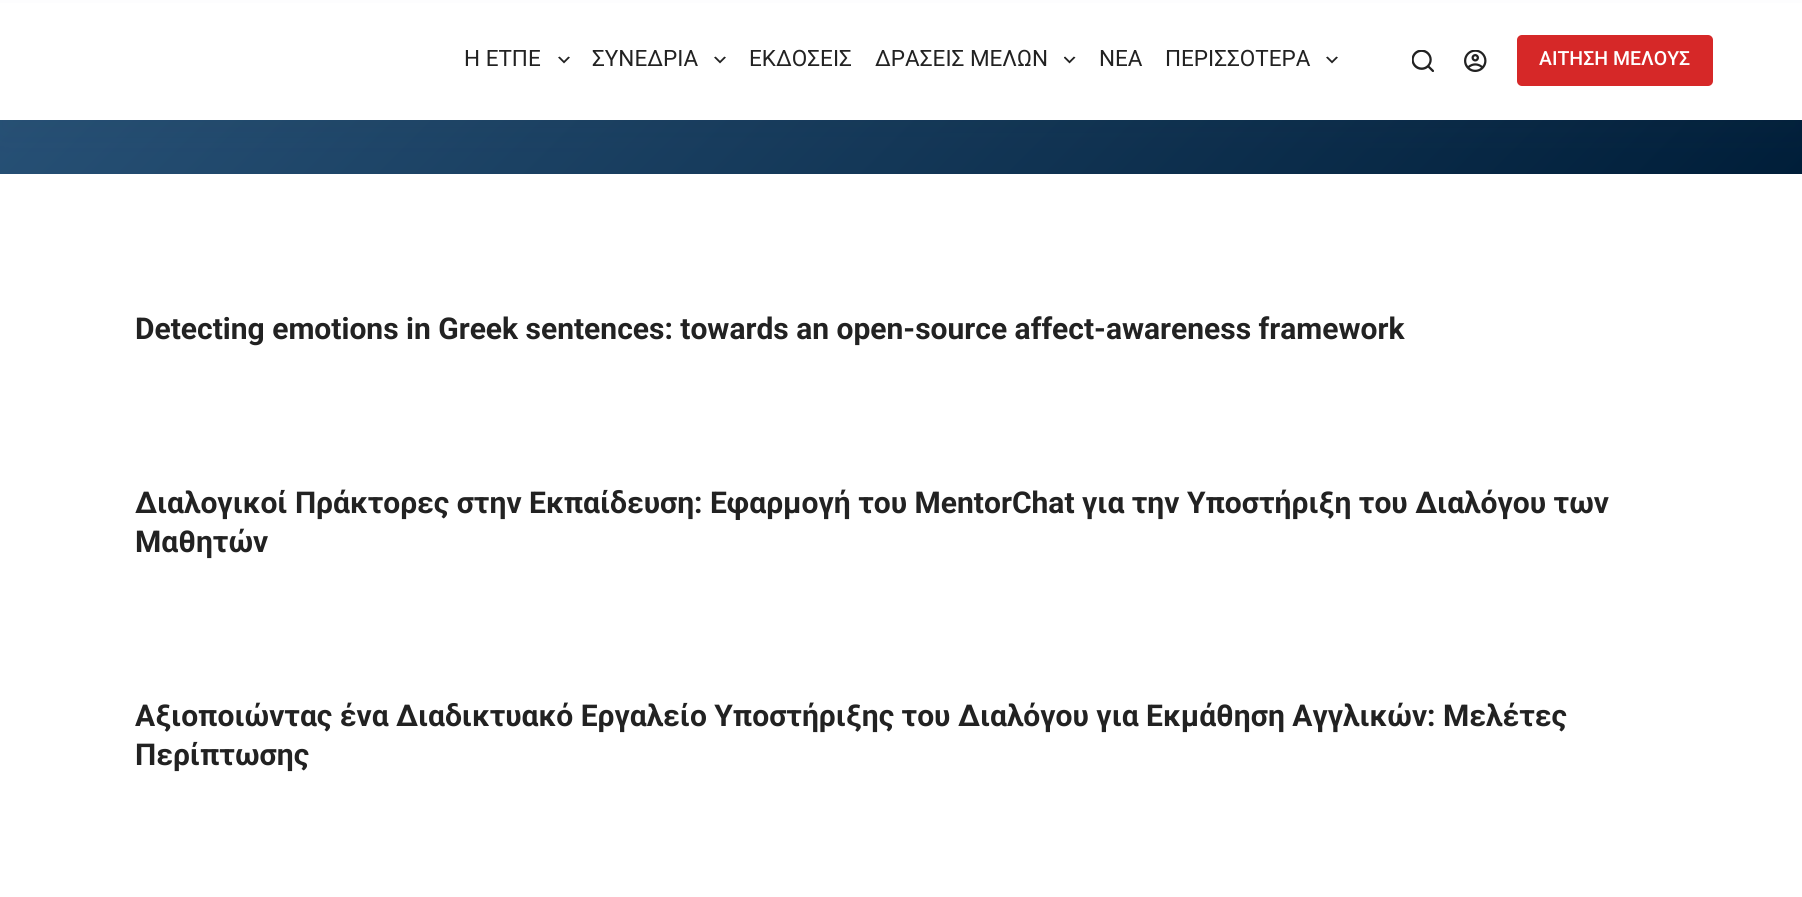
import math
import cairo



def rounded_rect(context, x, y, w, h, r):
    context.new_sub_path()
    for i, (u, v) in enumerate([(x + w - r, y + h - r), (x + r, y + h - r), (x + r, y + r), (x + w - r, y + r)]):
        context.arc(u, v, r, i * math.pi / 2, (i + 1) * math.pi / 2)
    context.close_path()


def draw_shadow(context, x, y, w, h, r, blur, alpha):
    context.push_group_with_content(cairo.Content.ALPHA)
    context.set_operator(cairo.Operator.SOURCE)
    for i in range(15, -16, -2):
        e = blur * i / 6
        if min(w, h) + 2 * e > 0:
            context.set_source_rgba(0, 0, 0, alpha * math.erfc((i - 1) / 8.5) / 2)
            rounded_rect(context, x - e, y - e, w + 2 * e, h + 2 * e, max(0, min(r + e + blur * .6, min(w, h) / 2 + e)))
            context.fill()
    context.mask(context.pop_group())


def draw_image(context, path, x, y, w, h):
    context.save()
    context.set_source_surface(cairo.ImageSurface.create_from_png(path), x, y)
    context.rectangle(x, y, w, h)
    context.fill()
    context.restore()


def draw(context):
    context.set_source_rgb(1, 1, 1)
    context.paint()
    gradient = cairo.LinearGradient(346, -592, 1457, 520)
    gradient.add_color_stop_rgba(0, 46 / 255, 90 / 255, 129 / 255, 1)
    gradient.add_color_stop_rgba(1, 0, 30 / 255, 57 / 255, 1)
    context.set_source(gradient)
    context.rectangle(0, 120, 1802, 54)
    context.fill()
    context.set_source_rgb(43 / 255, 61 / 255, 80 / 255)
    draw_shadow(context, 0, 15, 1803, 120, 0, 15, 0.06)
    context.set_source_rgb(1, 1, 1)
    context.rectangle(0, 3, 1802, 117)
    context.fill()
    draw_image(context, "images/1.png", 558, 56, 12, 8)
    draw_image(context, "images/1.png", 714, 56, 12, 8)
    draw_image(context, "images/2.png", 1064, 56, 12, 8)
    draw_image(context, "images/1.png", 1326, 56, 12, 8)
    draw_image(context, "images/3.png", 1412, 50, 22, 22)
    draw_image(context, "images/4.png", 1464, 50, 23, 22)
    context.set_source_rgb(214 / 255, 40 / 255, 40 / 255)
    rounded_rect(context, 1517, 35, 196, 51, 5)
    context.fill()
    context.select_font_face("Roboto")
    context.set_font_size(22.5)
    context.set_source_rgb(34 / 255, 34 / 255, 34 / 255)
    context.move_to(464, 66)
    context.show_text("Η ΕΤΠΕ")
    context.move_to(592, 66)
    context.show_text("ΣΥΝΕΔΡΙΑ")
    context.move_to(749, 66)
    context.show_text("ΕΚΔΟΣΕΙΣ")
    context.move_to(875, 66)
    context.show_text("ΔΡΑΣΕΙΣ ΜΕΛΩΝ")
    context.move_to(1099, 66)
    context.show_text("ΝΕΑ")
    context.move_to(1165, 66)
    context.show_text("ΠΕΡΙΣΣΟΤΕΡΑ")
    context.select_font_face("Roboto Medium")
    context.set_font_size(19.5)
    context.set_source_rgb(1, 1, 1)
    context.move_to(1539, 65)
    context.show_text("ΑΙΤΗΣΗ ΜΕΛΟΥΣ")
    context.select_font_face("Roboto", cairo.FontSlant.NORMAL, cairo.FontWeight.BOLD)
    context.set_font_size(30)
    context.set_source_rgb(34 / 255, 34 / 255, 34 / 255)
    context.move_to(135, 339)
    context.show_text("Detecting emotions in Greek sentences: towards an open-source affect-awareness framework")
    context.move_to(135, 513)
    context.show_text("Διαλογικοί Πράκτορες στην Εκπαίδευση: Εφαρμογή του MentorChat για την Υποστήριξη του Διαλόγου των")
    context.move_to(135, 552)
    context.show_text("Μαθητών")
    context.move_to(135, 726)
    context.show_text("Αξιοποιώντας ένα Διαδικτυακό Εργαλείο Υποστήριξης του Διαλόγου για Εκμάθηση Αγγλικών: Μελέτες")
    context.move_to(135, 765)
    context.show_text("Περίπτωσης")


surface = cairo.ImageSurface(cairo.Format.RGB24, 1802, 897)
context = cairo.Context(surface)
options = cairo.FontOptions()
options.set_hint_metrics(cairo.HintMetrics.OFF)
options.set_hint_style(cairo.HintStyle.NONE)
context.set_font_options(options)
context.set_miter_limit(4)
draw(context)
surface.write_to_png("out.png")
